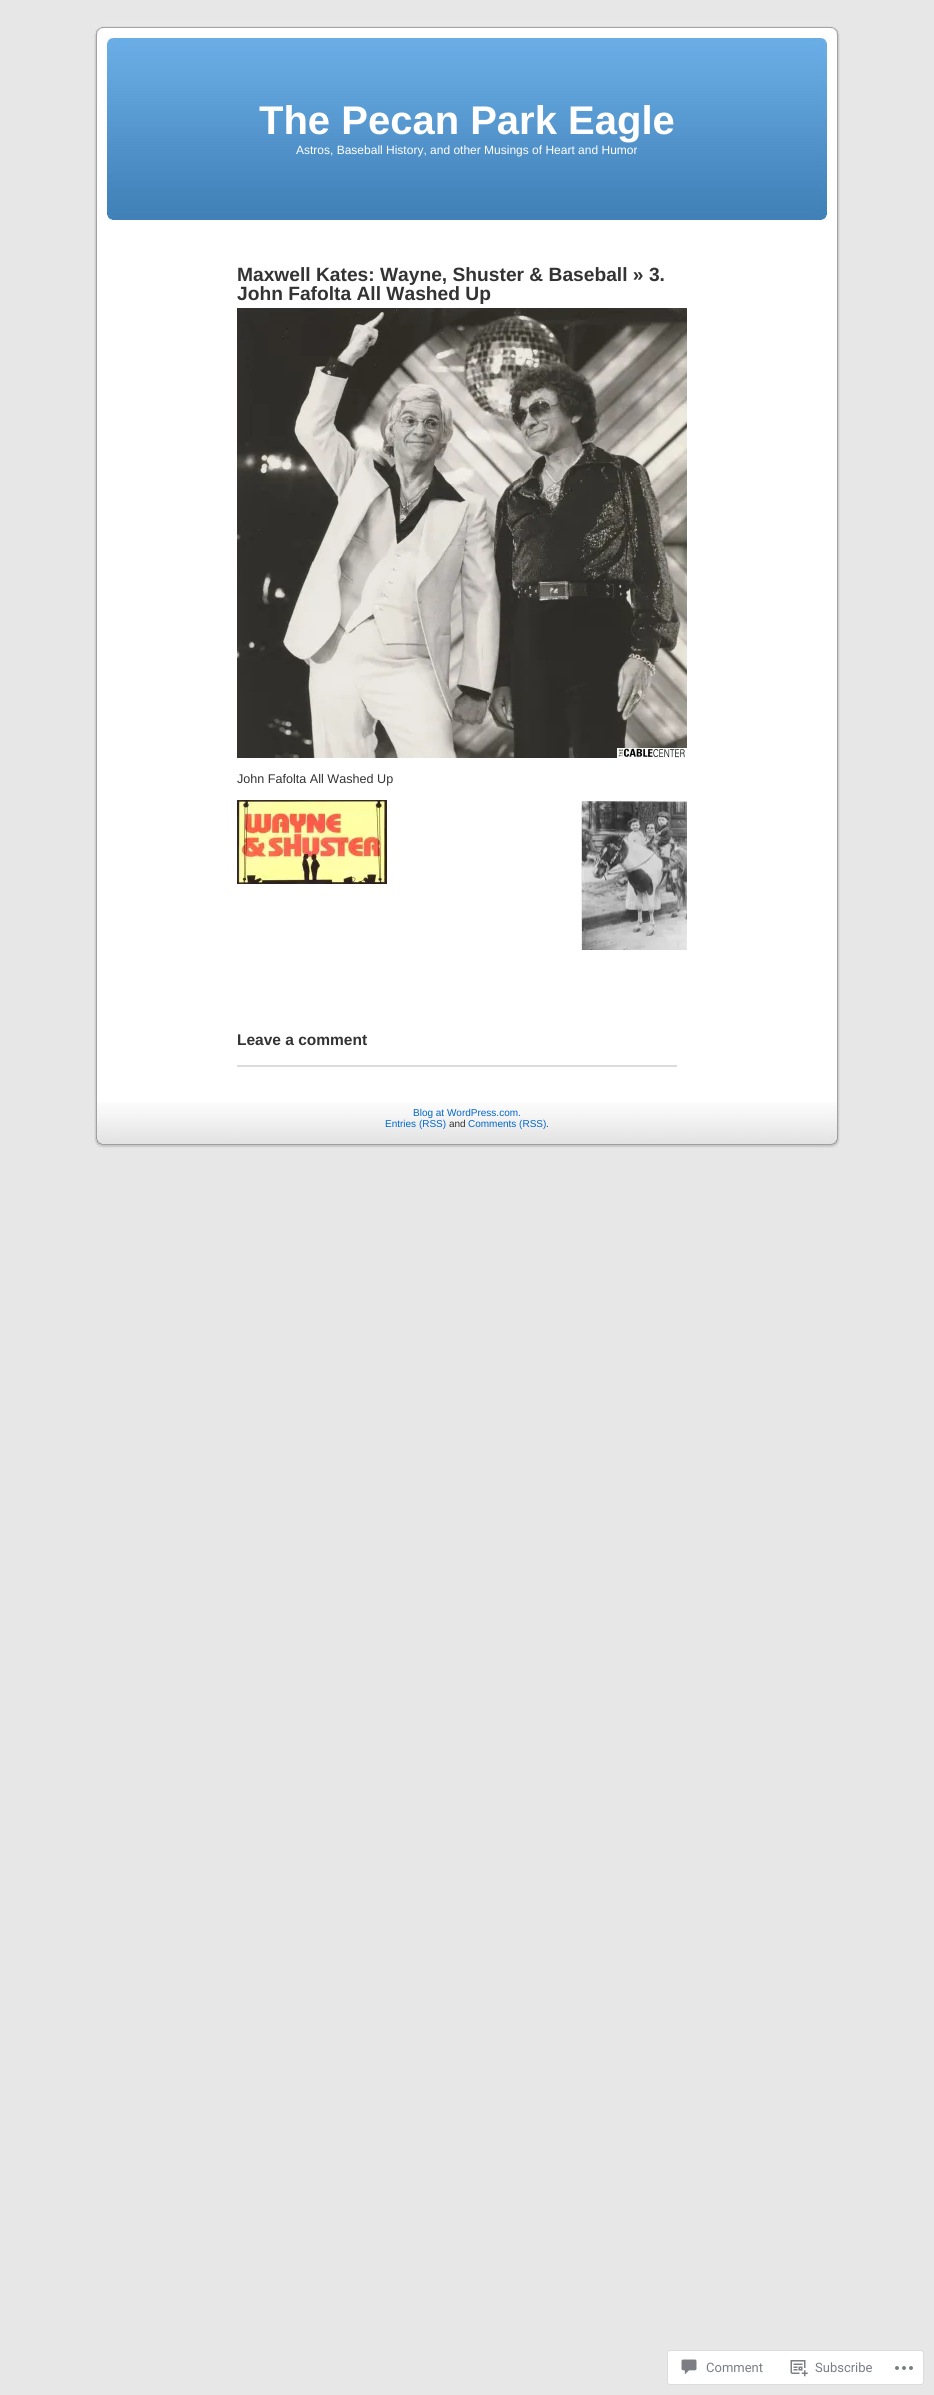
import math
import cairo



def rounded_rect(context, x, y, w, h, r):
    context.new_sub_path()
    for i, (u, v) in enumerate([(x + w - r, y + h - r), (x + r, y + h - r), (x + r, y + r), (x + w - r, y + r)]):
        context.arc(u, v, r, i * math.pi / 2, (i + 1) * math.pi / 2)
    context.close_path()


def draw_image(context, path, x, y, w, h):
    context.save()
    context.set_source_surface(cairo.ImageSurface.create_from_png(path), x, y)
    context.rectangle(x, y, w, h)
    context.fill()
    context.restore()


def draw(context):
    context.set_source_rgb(231 / 255, 231 / 255, 231 / 255)
    context.paint()
    draw_image(context, "images/1.png", 94, 220, 746, 882)
    draw_image(context, "images/2.png", 94, 20, 746, 200)
    draw_image(context, "images/3.png", 237, 308, 450, 450)
    draw_image(context, "images/4.png", 237, 800, 150, 84)
    draw_image(context, "images/5.png", 581, 800, 106, 150)
    context.set_source_rgb(220 / 255, 220 / 255, 222 / 255)
    context.rectangle(237, 1065, 440, 2)
    context.fill()
    draw_image(context, "images/6.png", 94, 1102, 746, 47)
    context.set_source_rgb(1, 1, 1)
    rounded_rect(context, 667.5, 2350.5, 256, 34, 2.5)
    context.fill_preserve()
    context.set_source_rgb(220 / 255, 220 / 255, 222 / 255)
    context.set_line_width(1)
    context.stroke()
    draw_image(context, "images/7.png", 681, 2359, 16, 16)
    draw_image(context, "images/8.png", 790, 2360, 18, 17)
    draw_image(context, "images/9.png", 895, 2366, 18, 4)
    context.select_font_face("Liberation Sans", cairo.FontSlant.NORMAL, cairo.FontWeight.BOLD)
    context.set_font_size(40)
    context.set_source_rgb(1, 1, 1)
    context.move_to(259, 134)
    context.show_text("The Pecan Park Eagle")
    context.select_font_face("Liberation Sans")
    context.set_font_size(12)
    context.move_to(296, 154)
    context.show_text("Astros, Baseball History, and other Musings of Heart and Humor")
    context.select_font_face("Liberation Sans", cairo.FontSlant.NORMAL, cairo.FontWeight.BOLD)
    context.set_font_size(19.2)
    context.set_source_rgb(51 / 255, 51 / 255, 51 / 255)
    context.move_to(237, 281)
    context.show_text("Maxwell Kates: Wayne, Shuster & Baseball » 3.")
    context.move_to(237, 300)
    context.show_text("John Fafolta All Washed Up")
    context.select_font_face("Liberation Sans")
    context.set_font_size(12.6)
    context.move_to(237, 783)
    context.show_text("John Fafolta All Washed Up")
    context.select_font_face("Liberation Sans", cairo.FontSlant.NORMAL, cairo.FontWeight.BOLD)
    context.set_font_size(15.5)
    context.move_to(237, 1045)
    context.show_text("Leave a comment")
    context.select_font_face("Liberation Sans")
    context.set_font_size(10)
    context.set_source_rgb(0, 102 / 255, 204 / 255)
    context.move_to(413, 1116)
    context.show_text("Blog at WordPress.com.")
    context.move_to(385, 1127)
    context.show_text("Entries (RSS)")
    context.set_source_rgb(51 / 255, 51 / 255, 51 / 255)
    context.move_to(449, 1127)
    context.show_text("and")
    context.set_source_rgb(0, 102 / 255, 204 / 255)
    context.move_to(468, 1127)
    context.show_text("Comments (RSS)")
    context.set_source_rgb(51 / 255, 51 / 255, 51 / 255)
    context.move_to(546, 1127)
    context.show_text(".")
    context.select_font_face("Roboto")
    context.set_font_size(13)
    context.set_source_rgb(122 / 255, 126 / 255, 132 / 255)
    context.move_to(706, 2372)
    context.show_text("Comment")
    context.move_to(815, 2372)
    context.show_text("Subscribe")


surface = cairo.ImageSurface(cairo.Format.RGB24, 934, 2395)
context = cairo.Context(surface)
options = cairo.FontOptions()
options.set_hint_metrics(cairo.HintMetrics.OFF)
options.set_hint_style(cairo.HintStyle.NONE)
context.set_font_options(options)
context.set_miter_limit(4)
draw(context)
surface.write_to_png("out.png")
